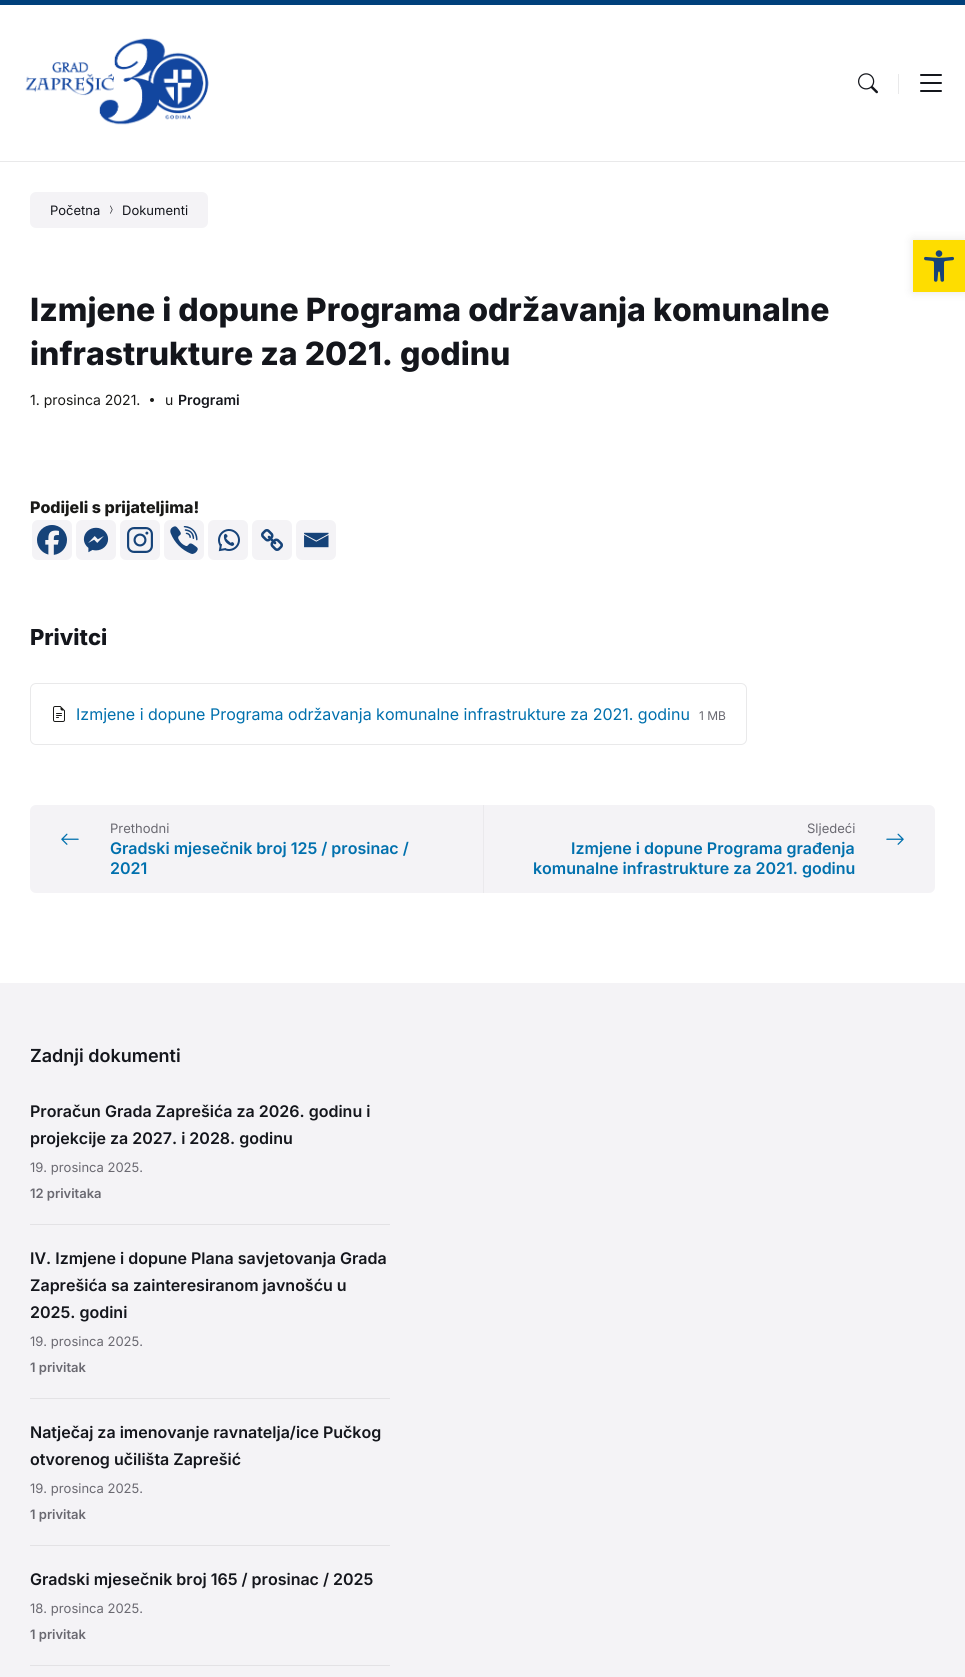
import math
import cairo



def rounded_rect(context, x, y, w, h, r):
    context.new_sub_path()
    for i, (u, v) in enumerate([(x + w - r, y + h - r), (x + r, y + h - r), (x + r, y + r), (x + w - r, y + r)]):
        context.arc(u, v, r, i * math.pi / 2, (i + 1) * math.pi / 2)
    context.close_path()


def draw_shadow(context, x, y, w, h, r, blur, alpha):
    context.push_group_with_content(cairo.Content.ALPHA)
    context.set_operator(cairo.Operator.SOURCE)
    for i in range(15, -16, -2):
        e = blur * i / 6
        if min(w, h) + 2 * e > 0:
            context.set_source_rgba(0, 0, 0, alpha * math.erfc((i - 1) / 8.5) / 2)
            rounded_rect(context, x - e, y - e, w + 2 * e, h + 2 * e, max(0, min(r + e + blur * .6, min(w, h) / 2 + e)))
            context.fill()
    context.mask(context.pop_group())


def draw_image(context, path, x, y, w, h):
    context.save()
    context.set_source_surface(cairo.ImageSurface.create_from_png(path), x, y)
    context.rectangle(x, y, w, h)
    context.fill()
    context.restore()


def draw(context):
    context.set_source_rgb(1, 1, 1)
    context.paint()
    context.set_source_rgb(233 / 255, 233 / 255, 234 / 255)
    context.rectangle(0, 161, 965, 1)
    context.fill()
    context.set_source_rgb(0, 64 / 255, 123 / 255)
    context.rectangle(0, 0, 965, 5)
    context.fill()
    draw_image(context, "images/1.png", 25, 38, 184, 87)
    draw_image(context, "images/2.png", 858, 73, 20, 21)
    context.set_source_rgb(233 / 255, 233 / 255, 234 / 255)
    context.rectangle(898, 74, 1, 20)
    context.fill()
    draw_image(context, "images/3.png", 920, 74, 22, 18)
    context.set_source_rgb(244 / 255, 243 / 255, 246 / 255)
    rounded_rect(context, 30, 192, 178, 36, 6)
    context.fill()
    draw_image(context, "images/4.png", 110, 205, 3, 9)
    context.set_source_rgb(26 / 255, 26 / 255, 24 / 255)
    context.arc(152, 400, 2, 0, 2 * math.pi)
    context.fill()
    context.set_source_rgb(244 / 255, 243 / 255, 246 / 255)
    rounded_rect(context, 32, 520, 40, 40, 6)
    context.fill()
    draw_image(context, "images/5.png", 37, 525, 30, 30)
    rounded_rect(context, 76, 520, 40, 40, 6)
    context.fill()
    draw_image(context, "images/6.png", 83, 527, 26, 26)
    rounded_rect(context, 120, 520, 40, 40, 6)
    context.fill()
    draw_image(context, "images/7.png", 127, 527, 26, 26)
    rounded_rect(context, 164, 520, 40, 40, 6)
    context.fill()
    draw_image(context, "images/8.png", 170, 526, 28, 28)
    rounded_rect(context, 208, 520, 40, 40, 6)
    context.fill()
    draw_image(context, "images/9.png", 218, 529, 22, 23)
    rounded_rect(context, 252, 520, 40, 40, 6)
    context.fill()
    draw_image(context, "images/10.png", 261, 529, 22, 22)
    rounded_rect(context, 296, 520, 40, 40, 6)
    context.fill()
    draw_image(context, "images/11.png", 304, 532, 25, 16)
    rounded_rect(context, 30.5, 683.5, 716, 61, 5.5)
    context.set_source_rgb(233 / 255, 233 / 255, 234 / 255)
    context.set_line_width(1)
    context.stroke()
    draw_image(context, "images/12.png", 53, 706, 12, 16)
    context.set_source_rgb(244 / 255, 243 / 255, 246 / 255)
    rounded_rect(context, 30, 805, 905, 88, 6)
    context.fill()
    context.set_source_rgb(234 / 255, 233 / 255, 236 / 255)
    context.rectangle(483, 805, 1, 88)
    context.fill()
    draw_image(context, "images/13.png", 61, 833, 18, 12)
    draw_image(context, "images/14.png", 886, 833, 18, 12)
    context.set_source_rgb(244 / 255, 243 / 255, 246 / 255)
    context.rectangle(0, 983, 965, 694)
    context.fill()
    context.set_source_rgb(227 / 255, 226 / 255, 229 / 255)
    context.rectangle(30, 1224, 360, 1)
    context.fill()
    context.rectangle(30, 1398, 360, 1)
    context.fill()
    context.rectangle(30, 1545, 360, 1)
    context.fill()
    context.rectangle(30, 1665, 360, 1)
    context.fill()
    context.set_source_rgb(0, 0, 0)
    draw_shadow(context, 913, 240, 52, 52, 0, 5, 0.1)
    context.set_source_rgb(254 / 255, 221 / 255, 0)
    context.rectangle(913, 240, 52, 52)
    context.fill()
    draw_image(context, "images/15.png", 924, 250, 30, 32)
    context.select_font_face("Inter")
    context.set_font_size(13)
    context.set_source_rgb(20 / 255, 22 / 255, 28 / 255)
    context.move_to(50, 215)
    context.show_text("Početna")
    context.move_to(122, 215)
    context.show_text("Dokumenti")
    context.select_font_face("Inter ExtraBold")
    context.set_font_size(32)
    context.move_to(30, 321)
    context.show_text("Izmjene i dopune Programa održavanja komunalne")
    context.move_to(30, 365)
    context.show_text("infrastrukture za 2021. godinu")
    context.select_font_face("Inter")
    context.set_font_size(14)
    context.set_source_rgb(26 / 255, 26 / 255, 24 / 255)
    context.move_to(30, 405)
    context.show_text("1. prosinca 2021.")
    context.move_to(165, 405)
    context.show_text("u")
    context.select_font_face("Inter SemiBold")
    context.set_source_rgb(20 / 255, 22 / 255, 28 / 255)
    context.move_to(178, 405)
    context.show_text("Programi")
    context.select_font_face("Inter ExtraBold")
    context.set_font_size(16)
    context.set_source_rgb(26 / 255, 26 / 255, 24 / 255)
    context.move_to(30, 513)
    context.show_text("Podijeli s prijateljima!")
    context.set_font_size(22)
    context.set_source_rgb(20 / 255, 22 / 255, 28 / 255)
    context.move_to(30, 645)
    context.show_text("Privitci")
    context.select_font_face("Inter")
    context.set_font_size(16)
    context.set_source_rgb(0, 112 / 255, 173 / 255)
    context.move_to(76, 720)
    context.show_text("Izmjene i dopune Programa održavanja komunalne infrastrukture za 2021. godinu")
    context.set_font_size(12)
    context.set_source_rgb(106 / 255, 105 / 255, 113 / 255)
    context.move_to(699, 720)
    context.show_text("1 MB")
    context.set_font_size(13)
    context.move_to(110, 833)
    context.show_text("Prethodni")
    context.select_font_face("Inter SemiBold")
    context.set_font_size(16)
    context.set_source_rgb(0, 112 / 255, 173 / 255)
    context.move_to(110, 854)
    context.show_text("Gradski mjesečnik broj 125 / prosinac /")
    context.move_to(110, 874)
    context.show_text("2021")
    context.select_font_face("Inter")
    context.set_font_size(13)
    context.set_source_rgb(106 / 255, 105 / 255, 113 / 255)
    context.move_to(807, 833)
    context.show_text("Sljedeći")
    context.select_font_face("Inter SemiBold")
    context.set_font_size(16)
    context.set_source_rgb(0, 112 / 255, 173 / 255)
    context.move_to(571, 854)
    context.show_text("Izmjene i dopune Programa građenja")
    context.move_to(533, 874)
    context.show_text("komunalne infrastrukture za 2021. godinu")
    context.set_font_size(18)
    context.set_source_rgb(20 / 255, 22 / 255, 28 / 255)
    context.move_to(30, 1062)
    context.show_text("Zadnji dokumenti")
    context.set_font_size(16)
    context.move_to(30, 1117)
    context.show_text("Proračun Grada Zaprešića za 2026. godinu i")
    context.move_to(30, 1144)
    context.show_text("projekcije za 2027. i 2028. godinu")
    context.select_font_face("Inter")
    context.set_font_size(13)
    context.set_source_rgb(106 / 255, 105 / 255, 113 / 255)
    context.move_to(30, 1172)
    context.show_text("19. prosinca 2025.")
    context.select_font_face("Inter SemiBold")
    context.move_to(30, 1198)
    context.show_text("12 privitaka")
    context.set_font_size(16)
    context.set_source_rgb(20 / 255, 22 / 255, 28 / 255)
    context.move_to(30, 1264)
    context.show_text("IV. Izmjene i dopune Plana savjetovanja Grada")
    context.move_to(30, 1291)
    context.show_text("Zaprešića sa zainteresiranom javnošću u")
    context.move_to(30, 1318)
    context.show_text("2025. godini")
    context.select_font_face("Inter")
    context.set_font_size(13)
    context.set_source_rgb(106 / 255, 105 / 255, 113 / 255)
    context.move_to(30, 1346)
    context.show_text("19. prosinca 2025.")
    context.select_font_face("Inter SemiBold")
    context.move_to(30, 1372)
    context.show_text("1 privitak")
    context.set_font_size(16)
    context.set_source_rgb(20 / 255, 22 / 255, 28 / 255)
    context.move_to(30, 1438)
    context.show_text("Natječaj za imenovanje ravnatelja/ice Pučkog")
    context.move_to(30, 1465)
    context.show_text("otvorenog učilišta Zaprešić")
    context.select_font_face("Inter")
    context.set_font_size(13)
    context.set_source_rgb(106 / 255, 105 / 255, 113 / 255)
    context.move_to(30, 1493)
    context.show_text("19. prosinca 2025.")
    context.select_font_face("Inter SemiBold")
    context.move_to(30, 1519)
    context.show_text("1 privitak")
    context.set_font_size(16)
    context.set_source_rgb(20 / 255, 22 / 255, 28 / 255)
    context.move_to(30, 1585)
    context.show_text("Gradski mjesečnik broj 165 / prosinac / 2025")
    context.select_font_face("Inter")
    context.set_font_size(13)
    context.set_source_rgb(106 / 255, 105 / 255, 113 / 255)
    context.move_to(30, 1613)
    context.show_text("18. prosinca 2025.")
    context.select_font_face("Inter SemiBold")
    context.move_to(30, 1639)
    context.show_text("1 privitak")


surface = cairo.ImageSurface(cairo.Format.RGB24, 965, 1677)
context = cairo.Context(surface)
options = cairo.FontOptions()
options.set_hint_metrics(cairo.HintMetrics.OFF)
options.set_hint_style(cairo.HintStyle.NONE)
context.set_font_options(options)
context.set_miter_limit(4)
draw(context)
surface.write_to_png("out.png")
